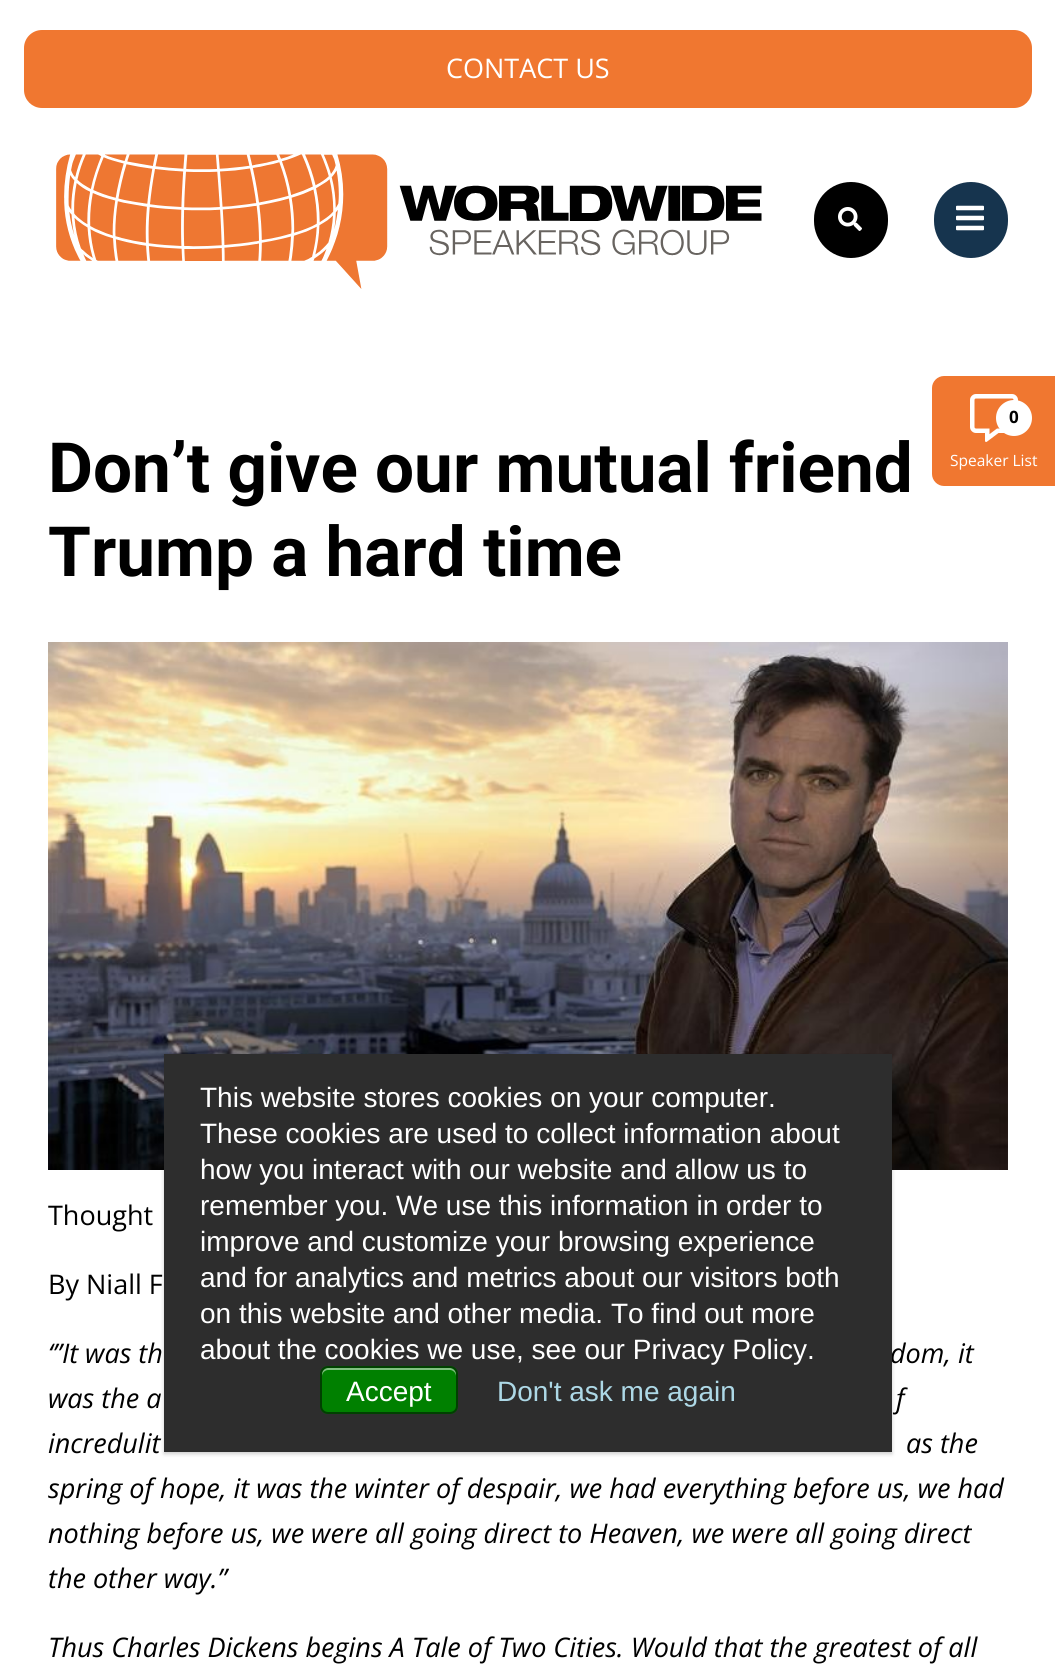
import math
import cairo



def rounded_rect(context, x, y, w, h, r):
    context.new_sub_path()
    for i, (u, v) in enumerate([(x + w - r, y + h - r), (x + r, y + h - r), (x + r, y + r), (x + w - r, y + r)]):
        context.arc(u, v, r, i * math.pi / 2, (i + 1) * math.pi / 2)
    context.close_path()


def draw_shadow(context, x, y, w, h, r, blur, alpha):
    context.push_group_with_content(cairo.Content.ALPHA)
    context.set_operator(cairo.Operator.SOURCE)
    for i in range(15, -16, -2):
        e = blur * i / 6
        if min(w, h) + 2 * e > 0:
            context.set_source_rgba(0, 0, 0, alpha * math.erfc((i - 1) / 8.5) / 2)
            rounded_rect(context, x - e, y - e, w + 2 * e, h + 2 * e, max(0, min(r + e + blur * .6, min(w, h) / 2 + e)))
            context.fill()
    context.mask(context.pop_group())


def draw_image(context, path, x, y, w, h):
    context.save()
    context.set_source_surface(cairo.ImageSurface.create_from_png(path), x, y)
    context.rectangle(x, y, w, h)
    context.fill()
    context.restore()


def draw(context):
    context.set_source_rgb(1, 1, 1)
    context.paint()
    context.set_source_rgb(240 / 255, 119 / 255, 48 / 255)
    rounded_rect(context, 26, 32, 1004, 74, 16)
    context.fill_preserve()
    context.set_line_width(4)
    context.stroke()
    draw_image(context, "images/1.png", 56, 154, 706, 135)
    context.set_source_rgb(0, 0, 0)
    rounded_rect(context, 814, 182, 74, 76, 37)
    context.fill()
    draw_image(context, "images/2.png", 838, 207, 24, 24)
    context.set_source_rgb(22 / 255, 52 / 255, 78 / 255)
    rounded_rect(context, 934, 182, 74, 76, 37)
    context.fill()
    draw_image(context, "images/3.png", 956, 205, 28, 26)
    context.set_source_rgb(240 / 255, 119 / 255, 48 / 255)
    context.new_path()
    context.move_to(944, 376)
    context.line_to(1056, 376)
    context.line_to(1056, 486)
    context.line_to(944, 486)
    context.curve_to(937.5, 486, 932, 480.5, 932, 474)
    context.line_to(932, 388)
    context.curve_to(932, 381.5, 937.5, 376, 944, 376)
    context.close_path()
    context.fill()
    draw_image(context, "images/4.png", 970, 394, 48, 48)
    context.set_source_rgb(1, 1, 1)
    context.arc(1014, 418, 18, 0, 2 * math.pi)
    context.fill()
    draw_image(context, "images/5.png", 48, 642, 960, 528)
    context.set_source_rgb(0, 0, 0)
    draw_shadow(context, 164, 1056, 728, 398, 0, 2, 0.2)
    context.select_font_face("Open Sans")
    context.set_font_size(27)
    context.set_source_rgb(1, 1, 1)
    context.move_to(446, 78)
    context.show_text("CONTACT US")
    context.select_font_face("Open Sans", cairo.FontSlant.NORMAL, cairo.FontWeight.BOLD)
    context.set_font_size(17)
    context.set_source_rgb(0, 0, 0)
    context.move_to(1009, 423)
    context.show_text("0")
    context.select_font_face("Open Sans")
    context.set_font_size(15.5)
    context.set_source_rgb(1, 1, 1)
    context.move_to(950, 466)
    context.show_text("Speaker List")
    context.select_font_face("Roboto", cairo.FontSlant.NORMAL, cairo.FontWeight.BOLD)
    context.set_font_size(69.25)
    context.set_source_rgb(0, 0, 0)
    context.move_to(48, 492)
    context.show_text("Don’t give our mutual friend")
    context.move_to(48, 576)
    context.show_text("Trump a hard time")
    context.select_font_face("Open Sans")
    context.set_font_size(27)
    context.move_to(48, 1225)
    context.show_text("Thought")
    context.move_to(48, 1294)
    context.show_text("By Niall F")
    context.select_font_face("Open Sans", cairo.FontSlant.ITALIC)
    context.move_to(48, 1363)
    context.show_text("‘”It was th")
    context.move_to(890, 1363)
    context.show_text("dom, it")
    context.move_to(48, 1408)
    context.show_text("was the a")
    context.move_to(896, 1408)
    context.show_text("f")
    context.move_to(48, 1453)
    context.show_text("incredulit")
    context.move_to(906, 1453)
    context.show_text("as the")
    context.move_to(48, 1498)
    context.show_text("spring of hope, it was the winter of despair, we had everything before us, we had")
    context.move_to(48, 1543)
    context.show_text("nothing before us, we were all going direct to Heaven, we were all going direct")
    context.move_to(48, 1588)
    context.show_text("the other way.”")
    context.move_to(48, 1657)
    context.show_text("Thus Charles Dickens begins A Tale of Two Cities. Would that the greatest of all")
    context.set_source_rgb(45 / 255, 45 / 255, 45 / 255)
    context.rectangle(164, 1054, 728, 398)
    context.fill()
    context.select_font_face("Liberation Sans")
    context.set_font_size(28)
    context.set_source_rgb(1, 1, 1)
    context.move_to(200, 1107)
    context.show_text("This website stores cookies on your computer.")
    context.move_to(200, 1143)
    context.show_text("These cookies are used to collect information about")
    context.move_to(200, 1179)
    context.show_text("how you interact with our website and allow us to")
    context.move_to(200, 1215)
    context.show_text("remember you. We use this information in order to")
    context.move_to(200, 1251)
    context.show_text("improve and customize your browsing experience")
    context.move_to(200, 1287)
    context.show_text("and for analytics and metrics about our visitors both")
    context.move_to(200, 1323)
    context.show_text("on this website and other media. To find out more")
    context.move_to(200, 1359)
    context.show_text("about the cookies we use, see our Privacy Policy.")
    context.set_source_rgb(0, 128 / 255, 0)
    rounded_rect(context, 320, 1366, 138, 48, 8)
    context.fill()
    context.set_source_rgb(128 / 255, 192 / 255, 128 / 255)
    context.new_path()
    context.move_to(328, 1370)
    context.line_to(450, 1370)
    context.curve_to(453, 1370, 456, 1373, 456, 1376)
    context.line_to(456, 1374)
    context.curve_to(456, 1371, 453, 1368, 450, 1368)
    context.line_to(328, 1368)
    context.curve_to(325, 1368, 322, 1371, 322, 1374)
    context.line_to(322, 1376)
    context.curve_to(322, 1373, 325, 1370, 328, 1370)
    context.close_path()
    context.fill()
    rounded_rect(context, 321, 1367, 136, 46, 7)
    context.set_source_rgba(0, 0, 0, 0.5)
    context.set_line_width(2)
    context.stroke()
    context.set_source_rgb(1, 1, 1)
    context.move_to(346, 1401)
    context.show_text("Accept")
    context.set_source_rgb(173 / 255, 216 / 255, 230 / 255)
    context.move_to(497, 1401)
    context.show_text("Don't ask me again")


surface = cairo.ImageSurface(cairo.Format.RGB24, 1055, 1670)
context = cairo.Context(surface)
options = cairo.FontOptions()
options.set_hint_metrics(cairo.HintMetrics.OFF)
options.set_hint_style(cairo.HintStyle.NONE)
context.set_font_options(options)
context.set_miter_limit(4)
draw(context)
surface.write_to_png("out.png")
